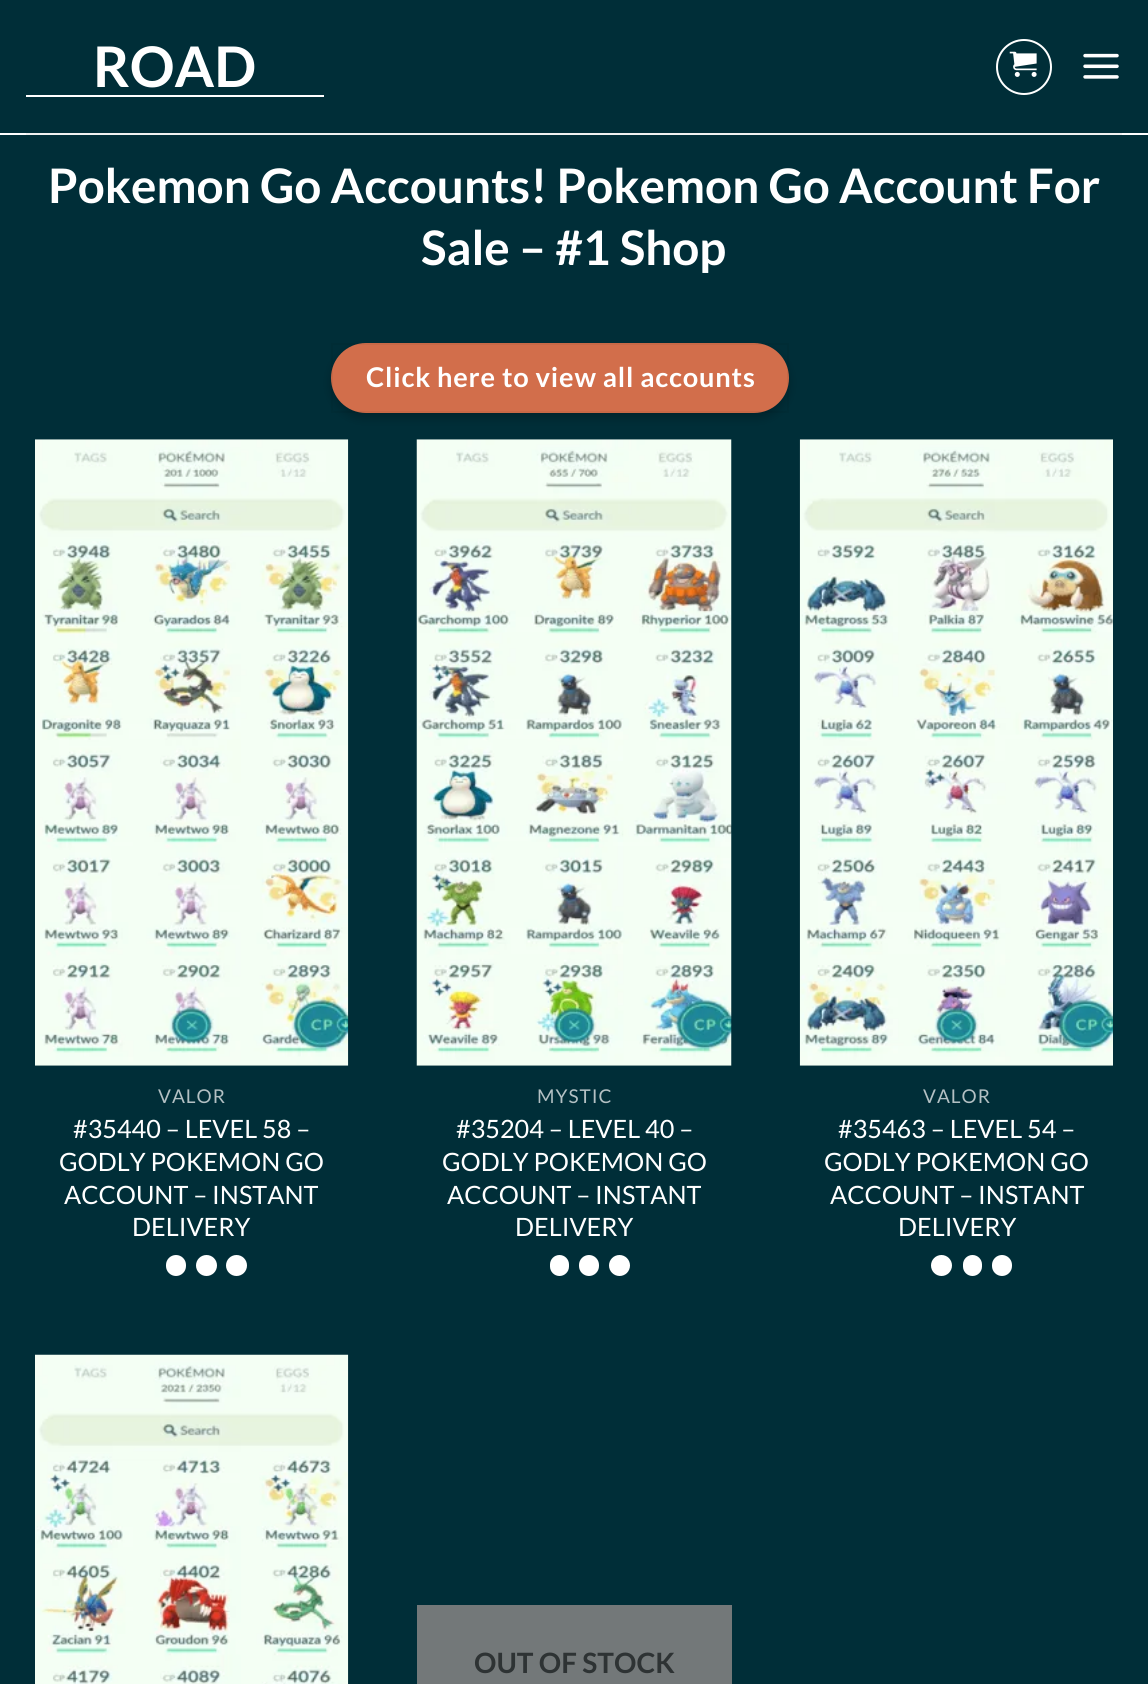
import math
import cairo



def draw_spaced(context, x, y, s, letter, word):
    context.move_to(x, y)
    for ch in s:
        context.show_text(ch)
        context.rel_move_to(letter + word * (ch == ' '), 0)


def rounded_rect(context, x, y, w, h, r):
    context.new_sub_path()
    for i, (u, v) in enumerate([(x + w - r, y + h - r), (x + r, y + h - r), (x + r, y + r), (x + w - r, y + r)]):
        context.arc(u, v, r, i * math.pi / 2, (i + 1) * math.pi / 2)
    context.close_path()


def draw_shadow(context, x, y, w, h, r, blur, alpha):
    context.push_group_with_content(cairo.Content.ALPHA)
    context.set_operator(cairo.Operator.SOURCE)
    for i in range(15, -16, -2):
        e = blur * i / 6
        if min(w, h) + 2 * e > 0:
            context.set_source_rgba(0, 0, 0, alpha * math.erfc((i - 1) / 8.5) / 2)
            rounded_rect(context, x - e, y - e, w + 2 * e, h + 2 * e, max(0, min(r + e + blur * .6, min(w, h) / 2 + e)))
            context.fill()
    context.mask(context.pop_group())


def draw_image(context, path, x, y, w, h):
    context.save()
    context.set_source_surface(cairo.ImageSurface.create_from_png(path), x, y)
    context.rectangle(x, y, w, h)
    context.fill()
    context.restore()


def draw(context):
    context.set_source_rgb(1, 1, 1)
    context.paint()
    context.set_source_rgb(0, 46 / 255, 56 / 255)
    context.rectangle(0, 0, 1148, 133)
    context.fill()
    context.set_source_rgb(1, 1, 1)
    context.rectangle(26, 95, 298, 2)
    context.fill()
    context.arc(1024, 67, 27, 0, 2 * math.pi)
    context.stroke()
    draw_image(context, "images/1.png", 1009, 51, 28, 26)
    draw_image(context, "images/2.png", 1083, 53, 36, 26)
    context.set_source_rgb(241 / 255, 241 / 255, 241 / 255)
    context.rectangle(26, 133, 1096, 2)
    context.fill()
    context.set_source_rgb(0, 46 / 255, 56 / 255)
    context.rectangle(0, 135, 1148, 1549)
    context.fill()
    context.set_source_rgb(0, 0, 0)
    draw_shadow(context, 331, 348, 458, 70, 35, 5, 0.23)
    context.set_source_rgb(210 / 255, 110 / 255, 75 / 255)
    rounded_rect(context, 331, 343, 458, 70, 35)
    context.fill()
    context.rectangle(332, 344, 456, 68)
    context.set_source_rgba(0, 0, 0, 0.05)
    context.stroke()
    draw_image(context, "images/3.png", 35, 439, 314, 627)
    context.set_source_rgb(1, 1, 1)
    context.arc(206.5, 1265.5, 10.5, 0, 2 * math.pi)
    context.fill()
    rounded_rect(context, 166, 1255, 20, 21, 10)
    context.fill()
    context.arc(236.5, 1265.5, 10.5, 0, 2 * math.pi)
    context.fill()
    draw_image(context, "images/4.png", 416, 439, 316, 627)
    rounded_rect(context, 579, 1255, 20, 21, 10)
    context.fill()
    rounded_rect(context, 550, 1255, 19, 21, 9.5)
    context.fill()
    context.arc(619.5, 1265.5, 10.5, 0, 2 * math.pi)
    context.fill()
    draw_image(context, "images/5.png", 799, 439, 314, 627)
    rounded_rect(context, 963, 1255, 19, 21, 9.5)
    context.fill()
    context.arc(941.5, 1265.5, 10.5, 0, 2 * math.pi)
    context.fill()
    rounded_rect(context, 992, 1255, 20, 21, 10)
    context.fill()
    draw_image(context, "images/6.png", 35, 1354, 314, 330)
    context.set_source_rgb(115 / 255, 120 / 255, 121 / 255)
    context.rectangle(417, 1605, 315, 79)
    context.fill()
    context.select_font_face("Lato", cairo.FontSlant.NORMAL, cairo.FontWeight.BOLD)
    context.set_font_size(56)
    context.set_source_rgb(1, 1, 1)
    context.move_to(93, 87)
    context.show_text("ROAD")
    context.set_font_size(47.6)
    context.move_to(48, 203)
    context.show_text("Pokemon Go Accounts! Pokemon Go Account For")
    context.move_to(421, 265)
    context.show_text("Sale – #1 Shop")
    context.set_font_size(27.2)
    draw_spaced(context, 366, 387, "Click here to view all accounts", 0.8, 0)
    context.select_font_face("Lato")
    context.set_font_size(19)
    context.set_source_rgb(179 / 255, 192 / 255, 195 / 255)
    draw_spaced(context, 158, 1103, "VALOR", 1, 0)
    context.set_font_size(25.25)
    context.set_source_rgb(1, 1, 1)
    context.move_to(73, 1138)
    context.show_text("#35440 – LEVEL 58 –")
    context.move_to(59, 1171)
    context.show_text("GODLY POKEMON GO")
    context.move_to(64, 1204)
    context.show_text("ACCOUNT – INSTANT")
    context.move_to(132, 1236)
    context.show_text("DELIVERY")
    context.set_font_size(19)
    context.set_source_rgb(179 / 255, 192 / 255, 195 / 255)
    draw_spaced(context, 537, 1103, "MYSTIC", 1, 0)
    context.set_font_size(25.25)
    context.set_source_rgb(1, 1, 1)
    context.move_to(456, 1138)
    context.show_text("#35204 – LEVEL 40 –")
    context.move_to(442, 1171)
    context.show_text("GODLY POKEMON GO")
    context.move_to(447, 1204)
    context.show_text("ACCOUNT – INSTANT")
    context.move_to(515, 1236)
    context.show_text("DELIVERY")
    context.set_font_size(19)
    context.set_source_rgb(179 / 255, 192 / 255, 195 / 255)
    draw_spaced(context, 923, 1103, "VALOR", 1, 0)
    context.set_font_size(25.25)
    context.set_source_rgb(1, 1, 1)
    context.move_to(838, 1138)
    context.show_text("#35463 – LEVEL 54 –")
    context.move_to(824, 1171)
    context.show_text("GODLY POKEMON GO")
    context.move_to(830, 1204)
    context.show_text("ACCOUNT – INSTANT")
    context.move_to(898, 1236)
    context.show_text("DELIVERY")
    context.select_font_face("Lato", cairo.FontSlant.NORMAL, cairo.FontWeight.BOLD)
    context.set_font_size(28)
    context.set_source_rgb(46 / 255, 51 / 255, 52 / 255)
    context.move_to(474, 1673)
    context.show_text("OUT OF STOCK")


surface = cairo.ImageSurface(cairo.Format.RGB24, 1148, 1684)
context = cairo.Context(surface)
options = cairo.FontOptions()
options.set_hint_metrics(cairo.HintMetrics.OFF)
options.set_hint_style(cairo.HintStyle.NONE)
context.set_font_options(options)
context.set_miter_limit(4)
draw(context)
surface.write_to_png("out.png")
